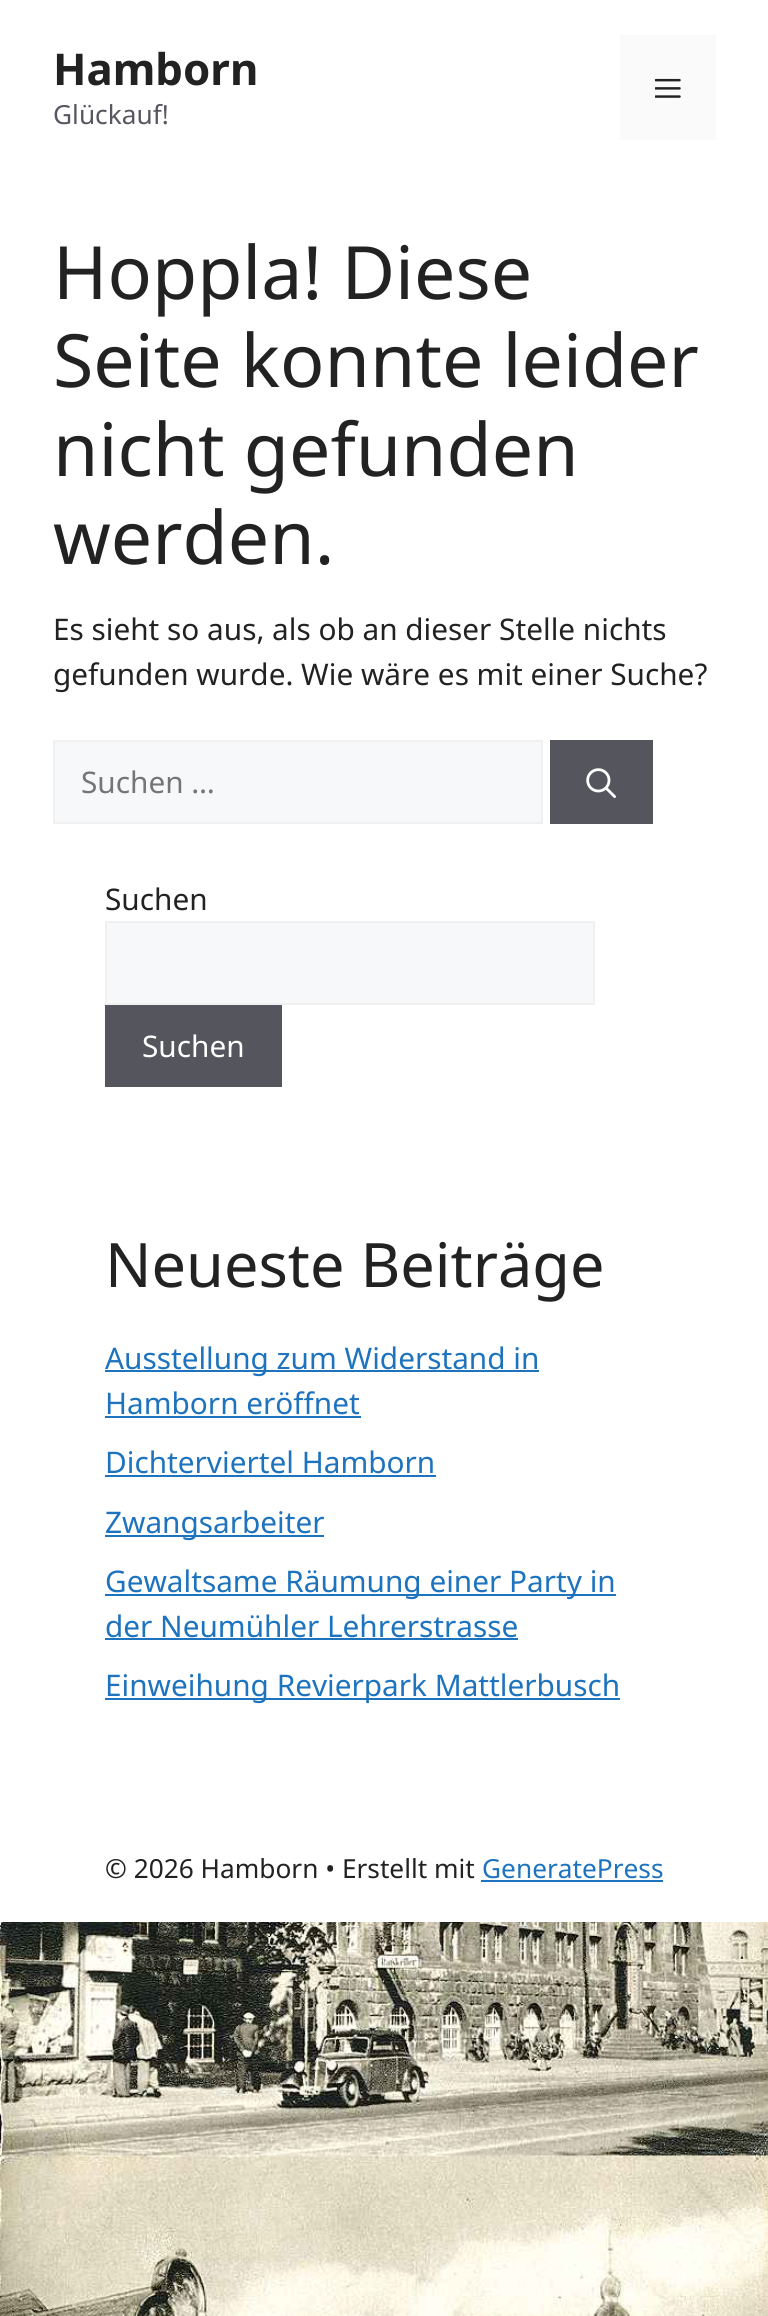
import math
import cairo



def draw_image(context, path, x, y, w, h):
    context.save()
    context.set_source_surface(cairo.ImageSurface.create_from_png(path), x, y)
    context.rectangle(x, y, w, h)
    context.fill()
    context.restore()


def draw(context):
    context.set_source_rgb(1, 1, 1)
    context.paint()
    draw_image(context, "images/1.png", 0, 1922, 768, 394)
    context.set_source_rgb(250 / 255, 250 / 255, 250 / 255)
    context.rectangle(620, 35, 96, 105)
    context.fill()
    draw_image(context, "images/2.png", 655, 78, 26, 20)
    context.set_source_rgb(247 / 255, 248 / 255, 249 / 255)
    context.rectangle(54, 741, 488, 82)
    context.fill_preserve()
    context.set_source_rgb(240 / 255, 240 / 255, 240 / 255)
    context.stroke()
    context.set_source_rgb(85 / 255, 85 / 255, 94 / 255)
    context.rectangle(550, 740, 103, 84)
    context.fill()
    draw_image(context, "images/3.png", 586, 768, 30, 30)
    context.set_source_rgb(247 / 255, 248 / 255, 249 / 255)
    context.rectangle(106, 922, 488, 82)
    context.fill_preserve()
    context.set_source_rgb(240 / 255, 240 / 255, 240 / 255)
    context.stroke()
    context.set_source_rgb(85 / 255, 85 / 255, 94 / 255)
    context.rectangle(105, 1005, 177, 82)
    context.fill()
    context.set_source_rgb(30 / 255, 115 / 255, 190 / 255)
    context.rectangle(105, 1370, 434, 2)
    context.fill()
    context.rectangle(105, 1416, 256, 2)
    context.fill()
    context.rectangle(105, 1475, 331, 2)
    context.fill()
    context.rectangle(105, 1535, 219, 2)
    context.fill()
    context.rectangle(105, 1594, 511, 2)
    context.fill()
    context.rectangle(105, 1638, 413, 2)
    context.fill()
    context.rectangle(105, 1698, 515, 2)
    context.fill()
    context.rectangle(481, 1880, 182, 2)
    context.fill()
    context.select_font_face("Noto Sans", cairo.FontSlant.NORMAL, cairo.FontWeight.BOLD)
    context.set_font_size(43.75)
    context.set_source_rgb(34 / 255, 34 / 255, 34 / 255)
    context.move_to(53, 85)
    context.show_text("Hamborn")
    context.select_font_face("Noto Sans")
    context.set_font_size(26.25)
    context.set_source_rgb(87 / 255, 87 / 255, 96 / 255)
    context.move_to(53, 124)
    context.show_text("Glückauf!")
    context.set_font_size(73.5)
    context.set_source_rgb(34 / 255, 34 / 255, 34 / 255)
    context.move_to(53, 299)
    context.show_text("Hoppla! Diese")
    context.move_to(53, 387)
    context.show_text("Seite konnte leider")
    context.move_to(53, 476)
    context.show_text("nicht gefunden")
    context.move_to(53, 564)
    context.show_text("werden.")
    context.set_font_size(29.75)
    context.move_to(53, 640)
    context.show_text("Es sieht so aus, als ob an dieser Stelle nichts")
    context.move_to(53, 685)
    context.show_text("gefunden wurde. Wie wäre es mit einer Suche?")
    context.set_source_rgb(117 / 255, 117 / 255, 117 / 255)
    context.move_to(81, 793)
    context.show_text("Suchen …")
    context.set_source_rgb(34 / 255, 34 / 255, 34 / 255)
    context.move_to(105, 910)
    context.show_text("Suchen")
    context.set_source_rgb(1, 1, 1)
    context.move_to(142, 1057)
    context.show_text("Suchen")
    context.set_font_size(61.25)
    context.set_source_rgb(34 / 255, 34 / 255, 34 / 255)
    context.move_to(105, 1287)
    context.show_text("Neueste Beiträge")
    context.set_font_size(29.75)
    context.set_source_rgb(30 / 255, 115 / 255, 190 / 255)
    context.move_to(105, 1369)
    context.show_text("Ausstellung zum Widerstand in")
    context.move_to(105, 1414)
    context.show_text("Hamborn eröffnet")
    context.move_to(105, 1473)
    context.show_text("Dichterviertel Hamborn")
    context.move_to(105, 1533)
    context.show_text("Zwangsarbeiter")
    context.move_to(105, 1592)
    context.show_text("Gewaltsame Räumung einer Party in")
    context.move_to(105, 1637)
    context.show_text("der Neumühler Lehrerstrasse")
    context.move_to(105, 1696)
    context.show_text("Einweihung Revierpark Mattlerbusch")
    context.set_font_size(26.25)
    context.set_source_rgb(34 / 255, 34 / 255, 34 / 255)
    context.move_to(105, 1878)
    context.show_text("© 2026 Hamborn • Erstellt mit")
    context.set_source_rgb(30 / 255, 115 / 255, 190 / 255)
    context.move_to(482, 1878)
    context.show_text("GeneratePress")


surface = cairo.ImageSurface(cairo.Format.RGB24, 768, 2316)
context = cairo.Context(surface)
options = cairo.FontOptions()
options.set_hint_metrics(cairo.HintMetrics.OFF)
options.set_hint_style(cairo.HintStyle.NONE)
context.set_font_options(options)
context.set_miter_limit(4)
draw(context)
surface.write_to_png("out.png")
